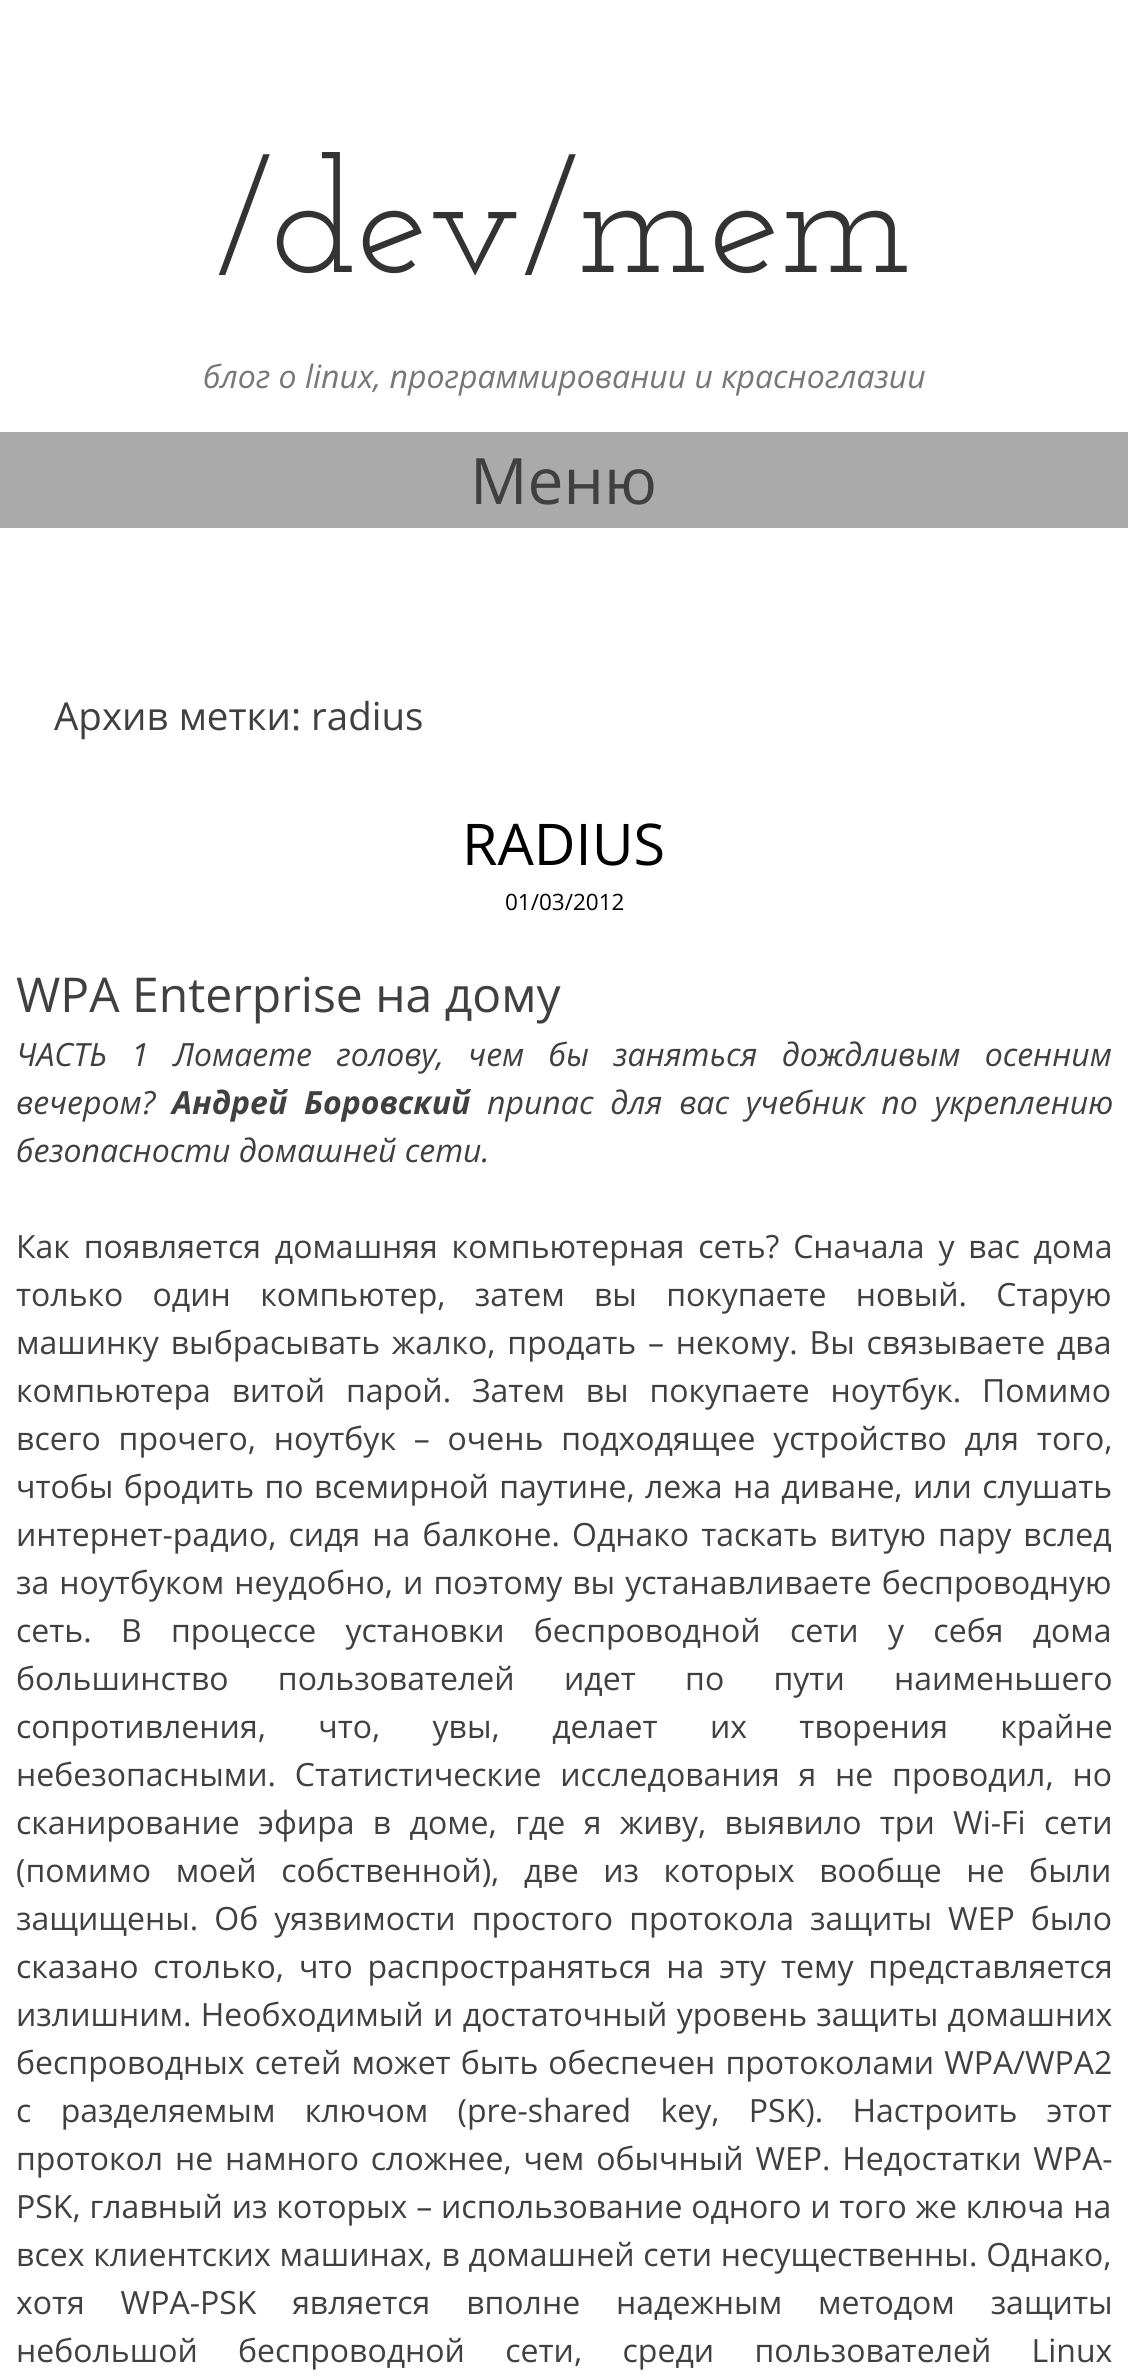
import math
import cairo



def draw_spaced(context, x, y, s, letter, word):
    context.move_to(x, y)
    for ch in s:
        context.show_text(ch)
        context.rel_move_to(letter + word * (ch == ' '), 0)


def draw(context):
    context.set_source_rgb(1, 1, 1)
    context.paint()
    context.set_source_rgb(170 / 255, 170 / 255, 170 / 255)
    context.rectangle(0, 432, 1128, 96)
    context.fill()
    context.select_font_face("Josefin Slab")
    context.set_font_size(160)
    context.set_source_rgb(51 / 255, 51 / 255, 51 / 255)
    context.move_to(216, 272)
    context.show_text("/dev/mem")
    context.select_font_face("Open Sans", cairo.FontSlant.ITALIC)
    context.set_font_size(32)
    context.set_source_rgb(119 / 255, 119 / 255, 119 / 255)
    context.move_to(203, 388)
    context.show_text("блог о linux, программировании и красноглазии")
    context.select_font_face("Open Sans")
    context.set_font_size(64)
    context.set_source_rgb(64 / 255, 64 / 255, 64 / 255)
    context.move_to(470, 504)
    context.show_text("Меню")
    context.set_font_size(38.5)
    context.move_to(54, 730)
    context.show_text("Архив метки: radius")
    context.set_font_size(57.5)
    context.set_source_rgb(0, 0, 0)
    context.move_to(462, 865)
    context.show_text("RADIUS")
    context.set_font_size(22.5)
    context.move_to(505, 910)
    context.show_text("01/03/2012")
    context.set_font_size(48)
    context.set_source_rgb(64 / 255, 64 / 255, 64 / 255)
    context.move_to(16, 1012)
    context.show_text("WPA Enterprise на дому")
    context.select_font_face("Open Sans", cairo.FontSlant.ITALIC)
    context.set_font_size(32)
    draw_spaced(context, 16, 1066, "ЧАСТЬ 1 Ломаете голову, чем бы заняться дождливым осенним", 0, 16)
    context.move_to(16, 1114)
    context.show_text("вечером?")
    context.select_font_face("Open Sans", cairo.FontSlant.ITALIC, cairo.FontWeight.BOLD)
    draw_spaced(context, 172, 1114, "Андрей Боровский", 0, 8.5)
    context.select_font_face("Open Sans", cairo.FontSlant.ITALIC)
    draw_spaced(context, 487, 1114, "припас для вас учебник по укреплению", 0, 8.5)
    context.move_to(16, 1162)
    context.show_text("безопасности домашней сети.")
    context.select_font_face("Open Sans")
    draw_spaced(context, 16, 1258, "Как появляется домашняя компьютерная сеть? Сначала у вас дома", 0, 5.5)
    draw_spaced(context, 16, 1306, "только один компьютер, затем вы покупаете новый. Старую", 0, 21)
    draw_spaced(context, 16, 1354, "машинку выбрасывать жалко, продать – некому. Вы связываете два", 0, 3.5)
    draw_spaced(context, 16, 1402, "компьютера витой парой. Затем вы покупаете ноутбук. Помимо", 0, 12.5)
    draw_spaced(context, 16, 1450, "всего прочего, ноутбук – очень подходящее устройство для того,", 0, 9.5)
    draw_spaced(context, 16, 1498, "чтобы бродить по всемирной паутине, лежа на диване, или слушать", 0, 2)
    draw_spaced(context, 16, 1546, "интернет-радио, сидя на балконе. Однако таскать витую пару вслед", 0, 3.75)
    draw_spaced(context, 16, 1594, "за ноутбуком неудобно, и поэтому вы устанавливаете беспроводную", 0, 1.75)
    draw_spaced(context, 16, 1642, "сеть. В процессе установки беспроводной сети у себя дома", 0, 21)
    draw_spaced(context, 16, 1690, "большинство пользователей идет по пути наименьшего", 0, 41)
    draw_spaced(context, 16, 1738, "сопротивления, что, увы, делает их творения крайне", 0, 44)
    draw_spaced(context, 16, 1786, "небезопасными. Статистические исследования я не проводил, но", 0, 10.5)
    draw_spaced(context, 16, 1834, "сканирование эфира в доме, где я живу, выявило три Wi-Fi сети", 0, 10)
    draw_spaced(context, 16, 1882, "(помимо моей собственной), две из которых вообще не были", 0, 16.25)
    draw_spaced(context, 16, 1930, "защищены. Об уязвимости простого протокола защиты WEP было", 0, 7.75)
    draw_spaced(context, 16, 1978, "сказано столько, что распространяться на эту тему представляется", 0, 6.5)
    draw_spaced(context, 16, 2026, "излишним. Необходимый и достаточный уровень защиты домашних", 0, 1)
    draw_spaced(context, 16, 2074, "беспроводных сетей может быть обеспечен протоколами WPA/WPA2", 0, 1.75)
    draw_spaced(context, 16, 2122, "с разделяемым ключом (pre-shared key, PSK). Настроить этот", 0, 21)
    draw_spaced(context, 16, 2170, "протокол не намного сложнее, чем обычный WEP. Недостатки WPA-", 0, 3.5)
    draw_spaced(context, 16, 2218, "PSK, главный из которых – использование одного и того же ключа на", 0, 0.5)
    draw_spaced(context, 16, 2266, "всех клиентских машинах, в домашней сети несущественны. Однако,", 0, 0.5)
    draw_spaced(context, 16, 2314, "хотя WPA-PSK является вполне надежным методом защиты", 0, 27.5)
    draw_spaced(context, 16, 2362, "небольшой беспроводной сети, среди пользователей Linux", 0, 32)


surface = cairo.ImageSurface(cairo.Format.RGB24, 1128, 2380)
context = cairo.Context(surface)
options = cairo.FontOptions()
options.set_hint_metrics(cairo.HintMetrics.OFF)
options.set_hint_style(cairo.HintStyle.NONE)
context.set_font_options(options)
context.set_miter_limit(4)
draw(context)
surface.write_to_png("out.png")
